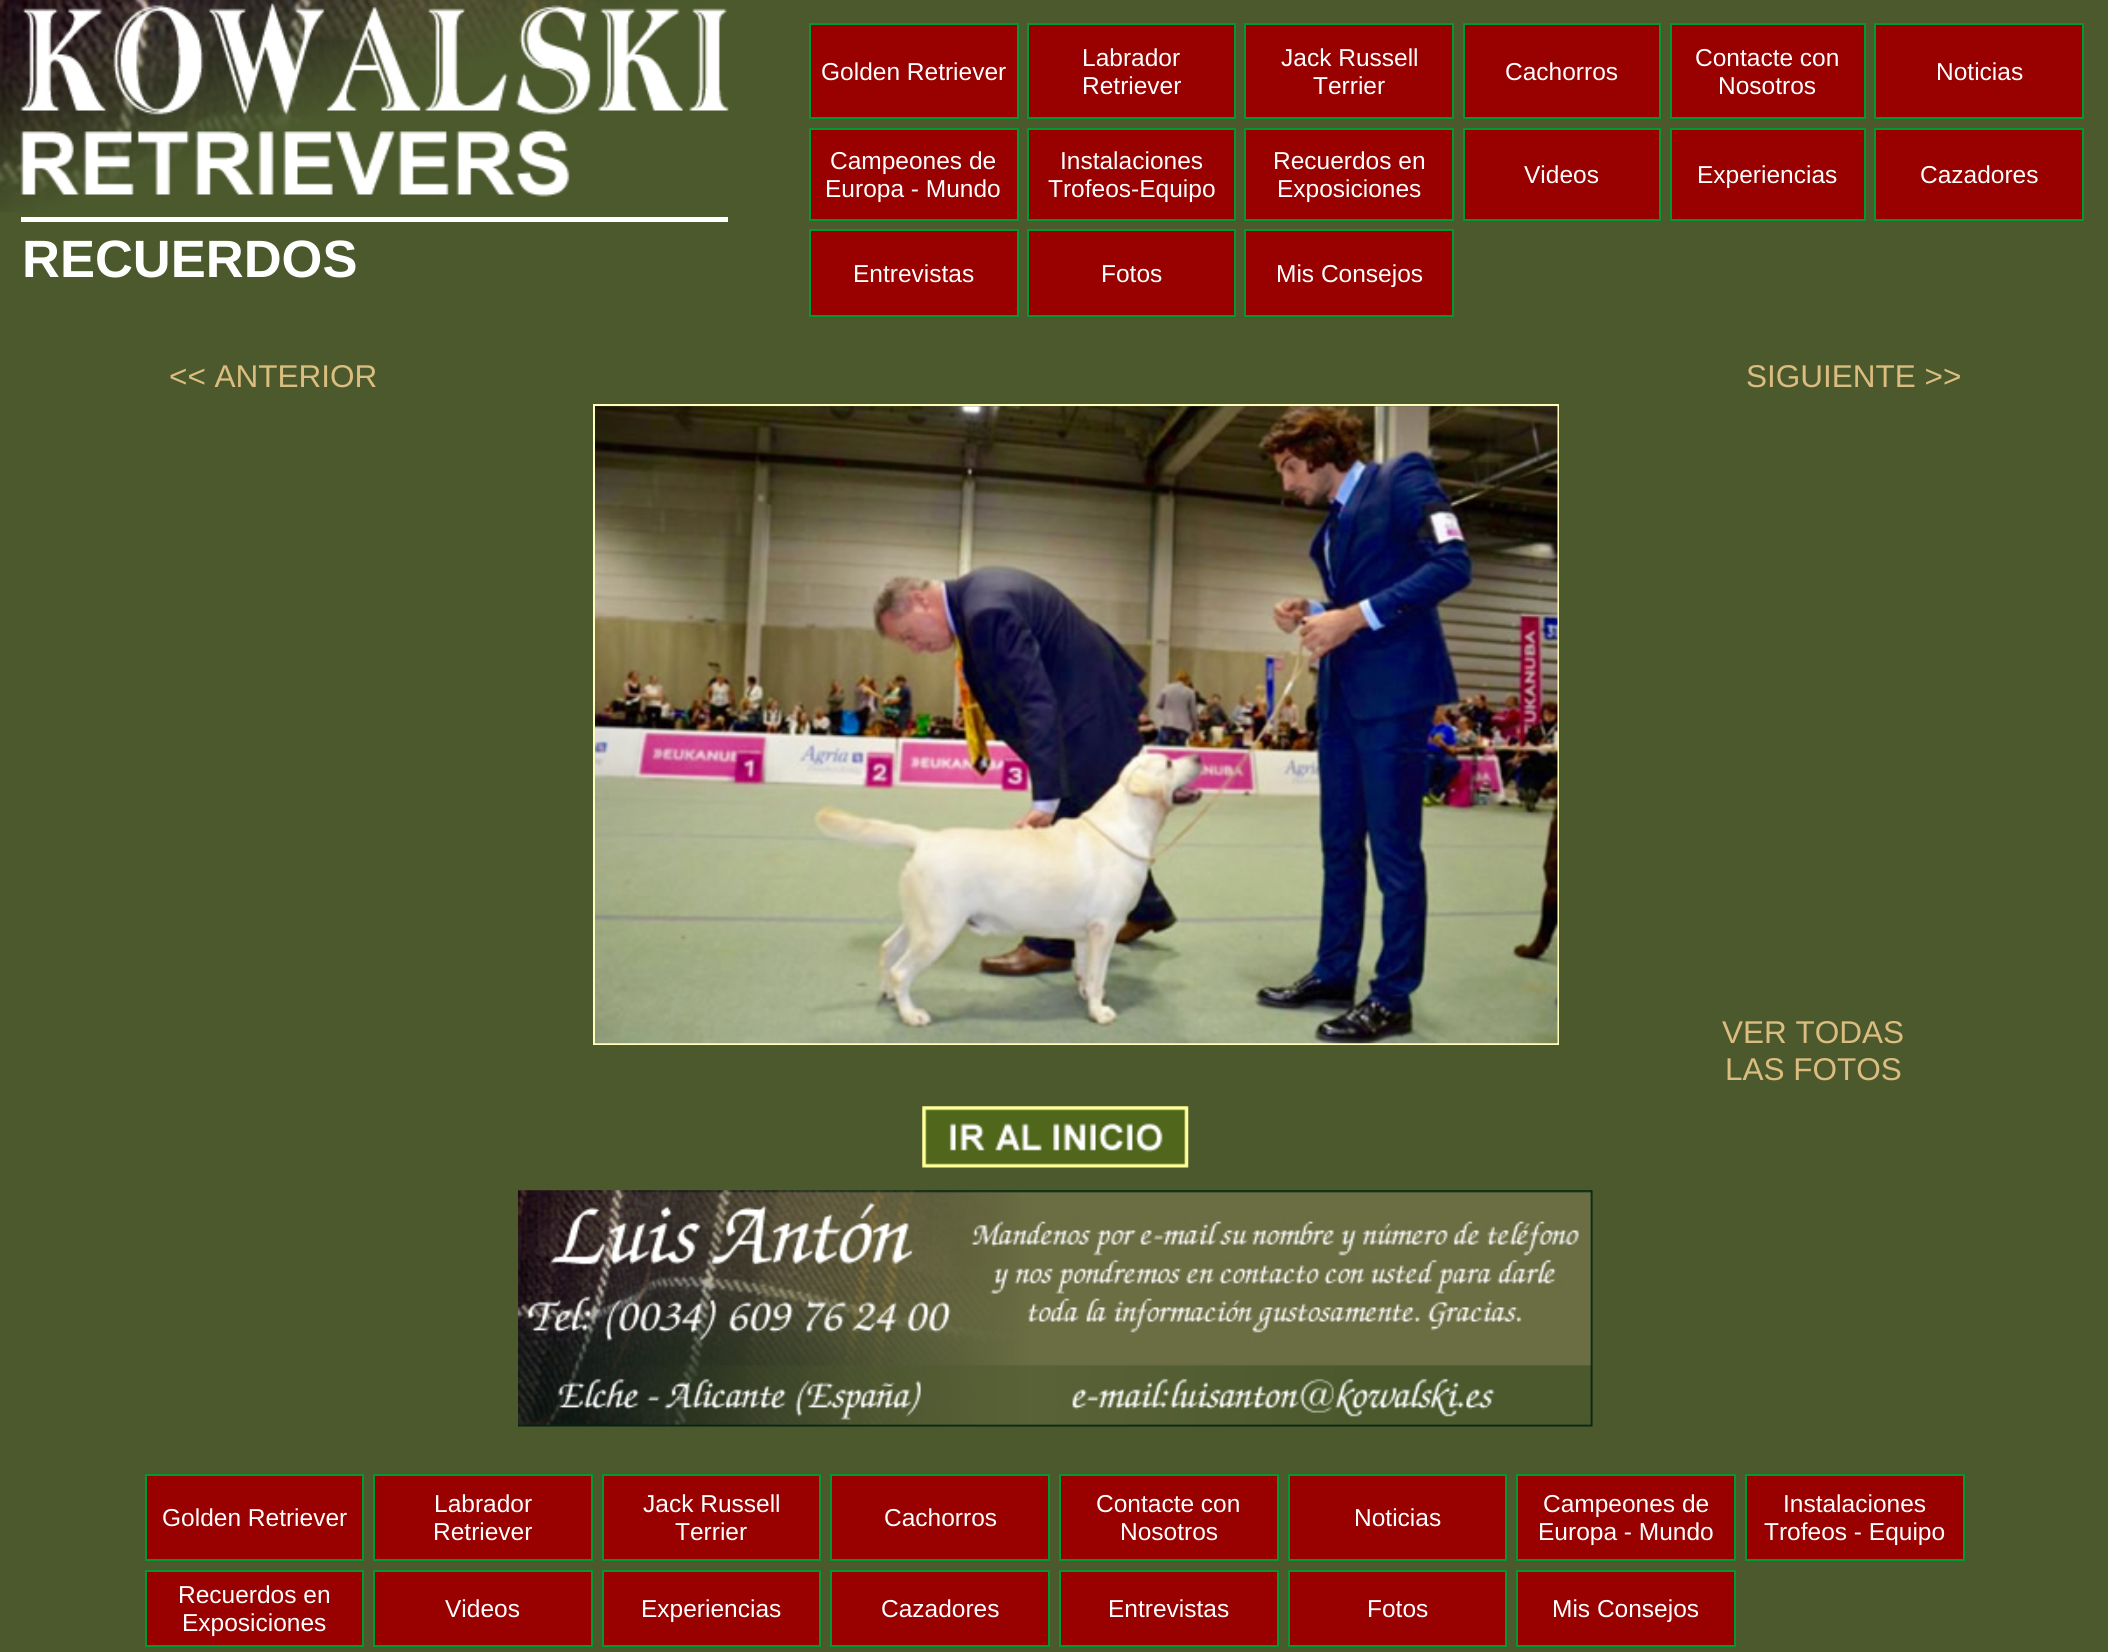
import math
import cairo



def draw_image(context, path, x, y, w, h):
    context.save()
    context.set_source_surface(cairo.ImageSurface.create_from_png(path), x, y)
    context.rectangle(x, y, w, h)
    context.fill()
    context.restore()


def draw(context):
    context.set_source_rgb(76 / 255, 89 / 255, 45 / 255)
    context.paint()
    draw_image(context, "images/1.png", 0, 0, 729, 212)
    context.set_source_rgb(1, 1, 1)
    context.rectangle(21, 217, 707, 5)
    context.fill()
    context.set_source_rgb(153 / 255, 0, 0)
    context.rectangle(810, 24, 208, 94)
    context.fill_preserve()
    context.set_source_rgb(0, 153 / 255, 51 / 255)
    context.stroke()
    context.set_source_rgb(153 / 255, 0, 0)
    context.rectangle(1028, 24, 207, 94)
    context.fill_preserve()
    context.set_source_rgb(0, 153 / 255, 51 / 255)
    context.stroke()
    context.set_source_rgb(153 / 255, 0, 0)
    context.rectangle(1245, 24, 208, 94)
    context.fill_preserve()
    context.set_source_rgb(0, 153 / 255, 51 / 255)
    context.stroke()
    context.set_source_rgb(153 / 255, 0, 0)
    context.rectangle(1464, 24, 196, 94)
    context.fill_preserve()
    context.set_source_rgb(0, 153 / 255, 51 / 255)
    context.stroke()
    context.set_source_rgb(153 / 255, 0, 0)
    context.rectangle(1671, 24, 194, 94)
    context.fill_preserve()
    context.set_source_rgb(0, 153 / 255, 51 / 255)
    context.stroke()
    context.set_source_rgb(153 / 255, 0, 0)
    context.rectangle(1875, 24, 208, 94)
    context.fill_preserve()
    context.set_source_rgb(0, 153 / 255, 51 / 255)
    context.stroke()
    context.set_source_rgb(153 / 255, 0, 0)
    context.rectangle(810, 129, 208, 91)
    context.fill_preserve()
    context.set_source_rgb(0, 153 / 255, 51 / 255)
    context.stroke()
    context.set_source_rgb(153 / 255, 0, 0)
    context.rectangle(1028, 129, 207, 91)
    context.fill_preserve()
    context.set_source_rgb(0, 153 / 255, 51 / 255)
    context.stroke()
    context.set_source_rgb(153 / 255, 0, 0)
    context.rectangle(1245, 129, 208, 91)
    context.fill_preserve()
    context.set_source_rgb(0, 153 / 255, 51 / 255)
    context.stroke()
    context.set_source_rgb(153 / 255, 0, 0)
    context.rectangle(1464, 129, 196, 91)
    context.fill_preserve()
    context.set_source_rgb(0, 153 / 255, 51 / 255)
    context.stroke()
    context.set_source_rgb(153 / 255, 0, 0)
    context.rectangle(1671, 129, 194, 91)
    context.fill_preserve()
    context.set_source_rgb(0, 153 / 255, 51 / 255)
    context.stroke()
    context.set_source_rgb(153 / 255, 0, 0)
    context.rectangle(1875, 129, 208, 91)
    context.fill_preserve()
    context.set_source_rgb(0, 153 / 255, 51 / 255)
    context.stroke()
    context.set_source_rgb(153 / 255, 0, 0)
    context.rectangle(810, 230, 208, 86)
    context.fill_preserve()
    context.set_source_rgb(0, 153 / 255, 51 / 255)
    context.stroke()
    context.set_source_rgb(153 / 255, 0, 0)
    context.rectangle(1028, 230, 207, 86)
    context.fill_preserve()
    context.set_source_rgb(0, 153 / 255, 51 / 255)
    context.stroke()
    context.set_source_rgb(153 / 255, 0, 0)
    context.rectangle(1245, 230, 208, 86)
    context.fill_preserve()
    context.set_source_rgb(0, 153 / 255, 51 / 255)
    context.stroke()
    context.rectangle(594, 405, 964, 639)
    context.set_source_rgb(1, 1, 187 / 255)
    context.stroke()
    draw_image(context, "images/2.png", 595, 406, 963, 638)
    draw_image(context, "images/3.png", 922, 1106, 267, 62)
    draw_image(context, "images/4.png", 518, 1190, 1075, 237)
    context.set_source_rgb(153 / 255, 0, 0)
    context.rectangle(146, 1475, 217, 85)
    context.fill_preserve()
    context.set_source_rgb(0, 153 / 255, 51 / 255)
    context.stroke()
    context.set_source_rgb(153 / 255, 0, 0)
    context.rectangle(374, 1475, 218, 85)
    context.fill_preserve()
    context.set_source_rgb(0, 153 / 255, 51 / 255)
    context.stroke()
    context.set_source_rgb(153 / 255, 0, 0)
    context.rectangle(603, 1475, 217, 85)
    context.fill_preserve()
    context.set_source_rgb(0, 153 / 255, 51 / 255)
    context.stroke()
    context.set_source_rgb(153 / 255, 0, 0)
    context.rectangle(831, 1475, 218, 85)
    context.fill_preserve()
    context.set_source_rgb(0, 153 / 255, 51 / 255)
    context.stroke()
    context.set_source_rgb(153 / 255, 0, 0)
    context.rectangle(1060, 1475, 218, 85)
    context.fill_preserve()
    context.set_source_rgb(0, 153 / 255, 51 / 255)
    context.stroke()
    context.set_source_rgb(153 / 255, 0, 0)
    context.rectangle(1289, 1475, 217, 85)
    context.fill_preserve()
    context.set_source_rgb(0, 153 / 255, 51 / 255)
    context.stroke()
    context.set_source_rgb(153 / 255, 0, 0)
    context.rectangle(1517, 1475, 218, 85)
    context.fill_preserve()
    context.set_source_rgb(0, 153 / 255, 51 / 255)
    context.stroke()
    context.set_source_rgb(153 / 255, 0, 0)
    context.rectangle(1746, 1475, 218, 85)
    context.fill_preserve()
    context.set_source_rgb(0, 153 / 255, 51 / 255)
    context.stroke()
    context.set_source_rgb(153 / 255, 0, 0)
    context.rectangle(146, 1571, 217, 75)
    context.fill_preserve()
    context.set_source_rgb(0, 153 / 255, 51 / 255)
    context.stroke()
    context.set_source_rgb(153 / 255, 0, 0)
    context.rectangle(374, 1571, 218, 75)
    context.fill_preserve()
    context.set_source_rgb(0, 153 / 255, 51 / 255)
    context.stroke()
    context.set_source_rgb(153 / 255, 0, 0)
    context.rectangle(603, 1571, 217, 75)
    context.fill_preserve()
    context.set_source_rgb(0, 153 / 255, 51 / 255)
    context.stroke()
    context.set_source_rgb(153 / 255, 0, 0)
    context.rectangle(831, 1571, 218, 75)
    context.fill_preserve()
    context.set_source_rgb(0, 153 / 255, 51 / 255)
    context.stroke()
    context.set_source_rgb(153 / 255, 0, 0)
    context.rectangle(1060, 1571, 218, 75)
    context.fill_preserve()
    context.set_source_rgb(0, 153 / 255, 51 / 255)
    context.stroke()
    context.set_source_rgb(153 / 255, 0, 0)
    context.rectangle(1289, 1571, 217, 75)
    context.fill_preserve()
    context.set_source_rgb(0, 153 / 255, 51 / 255)
    context.stroke()
    context.set_source_rgb(153 / 255, 0, 0)
    context.rectangle(1517, 1571, 218, 75)
    context.fill_preserve()
    context.set_source_rgb(0, 153 / 255, 51 / 255)
    context.stroke()
    context.select_font_face("Liberation Sans", cairo.FontSlant.NORMAL, cairo.FontWeight.BOLD)
    context.set_font_size(52.5)
    context.set_source_rgb(1, 1, 1)
    context.move_to(22, 277)
    context.show_text("RECUERDOS")
    context.select_font_face("Liberation Sans")
    context.set_font_size(24.5)
    context.move_to(821, 80)
    context.show_text("Golden Retriever")
    context.move_to(1082, 66)
    context.show_text("Labrador")
    context.move_to(1082, 94)
    context.show_text("Retriever")
    context.move_to(1281, 66)
    context.show_text("Jack Russell")
    context.move_to(1313, 94)
    context.show_text("Terrier")
    context.move_to(1505, 80)
    context.show_text("Cachorros")
    context.move_to(1695, 66)
    context.show_text("Contacte con")
    context.move_to(1718, 94)
    context.show_text("Nosotros")
    context.move_to(1936, 80)
    context.show_text("Noticias")
    context.move_to(830, 169)
    context.show_text("Campeones de")
    context.move_to(825, 197)
    context.show_text("Europa - Mundo")
    context.move_to(1060, 169)
    context.show_text("Instalaciones")
    context.move_to(1048, 197)
    context.show_text("Trofeos-Equipo")
    context.move_to(1273, 169)
    context.show_text("Recuerdos en")
    context.move_to(1277, 197)
    context.show_text("Exposiciones")
    context.move_to(1524, 183)
    context.show_text("Videos")
    context.move_to(1697, 183)
    context.show_text("Experiencias")
    context.move_to(1920, 183)
    context.show_text("Cazadores")
    context.move_to(853, 282)
    context.show_text("Entrevistas")
    context.move_to(1101, 282)
    context.show_text("Fotos")
    context.move_to(1276, 282)
    context.show_text("Mis Consejos")
    context.set_font_size(31.5)
    context.set_source_rgb(219 / 255, 189 / 255, 128 / 255)
    context.move_to(169, 387)
    context.show_text("<< ANTERIOR")
    context.move_to(1746, 387)
    context.show_text("SIGUIENTE >>")
    context.move_to(1722, 1043)
    context.show_text("VER TODAS")
    context.move_to(1725, 1080)
    context.show_text("LAS FOTOS")
    context.set_font_size(24.5)
    context.set_source_rgb(1, 1, 1)
    context.move_to(162, 1526)
    context.show_text("Golden Retriever")
    context.move_to(434, 1512)
    context.show_text("Labrador")
    context.move_to(433, 1540)
    context.show_text("Retriever")
    context.move_to(643, 1512)
    context.show_text("Jack Russell")
    context.move_to(675, 1540)
    context.show_text("Terrier")
    context.move_to(884, 1526)
    context.show_text("Cachorros")
    context.move_to(1096, 1512)
    context.show_text("Contacte con")
    context.move_to(1120, 1540)
    context.show_text("Nosotros")
    context.move_to(1354, 1526)
    context.show_text("Noticias")
    context.move_to(1543, 1512)
    context.show_text("Campeones de")
    context.move_to(1538, 1540)
    context.show_text("Europa - Mundo")
    context.move_to(1783, 1512)
    context.show_text("Instalaciones")
    context.move_to(1764, 1540)
    context.show_text("Trofeos - Equipo")
    context.move_to(178, 1603)
    context.show_text("Recuerdos en")
    context.move_to(182, 1631)
    context.show_text("Exposiciones")
    context.move_to(445, 1617)
    context.show_text("Videos")
    context.move_to(641, 1617)
    context.show_text("Experiencias")
    context.move_to(881, 1617)
    context.show_text("Cazadores")
    context.move_to(1108, 1617)
    context.show_text("Entrevistas")
    context.move_to(1367, 1617)
    context.show_text("Fotos")
    context.move_to(1552, 1617)
    context.show_text("Mis Consejos")


surface = cairo.ImageSurface(cairo.Format.RGB24, 2108, 1652)
context = cairo.Context(surface)
options = cairo.FontOptions()
options.set_hint_metrics(cairo.HintMetrics.OFF)
options.set_hint_style(cairo.HintStyle.NONE)
context.set_font_options(options)
context.set_miter_limit(4)
draw(context)
surface.write_to_png("out.png")
